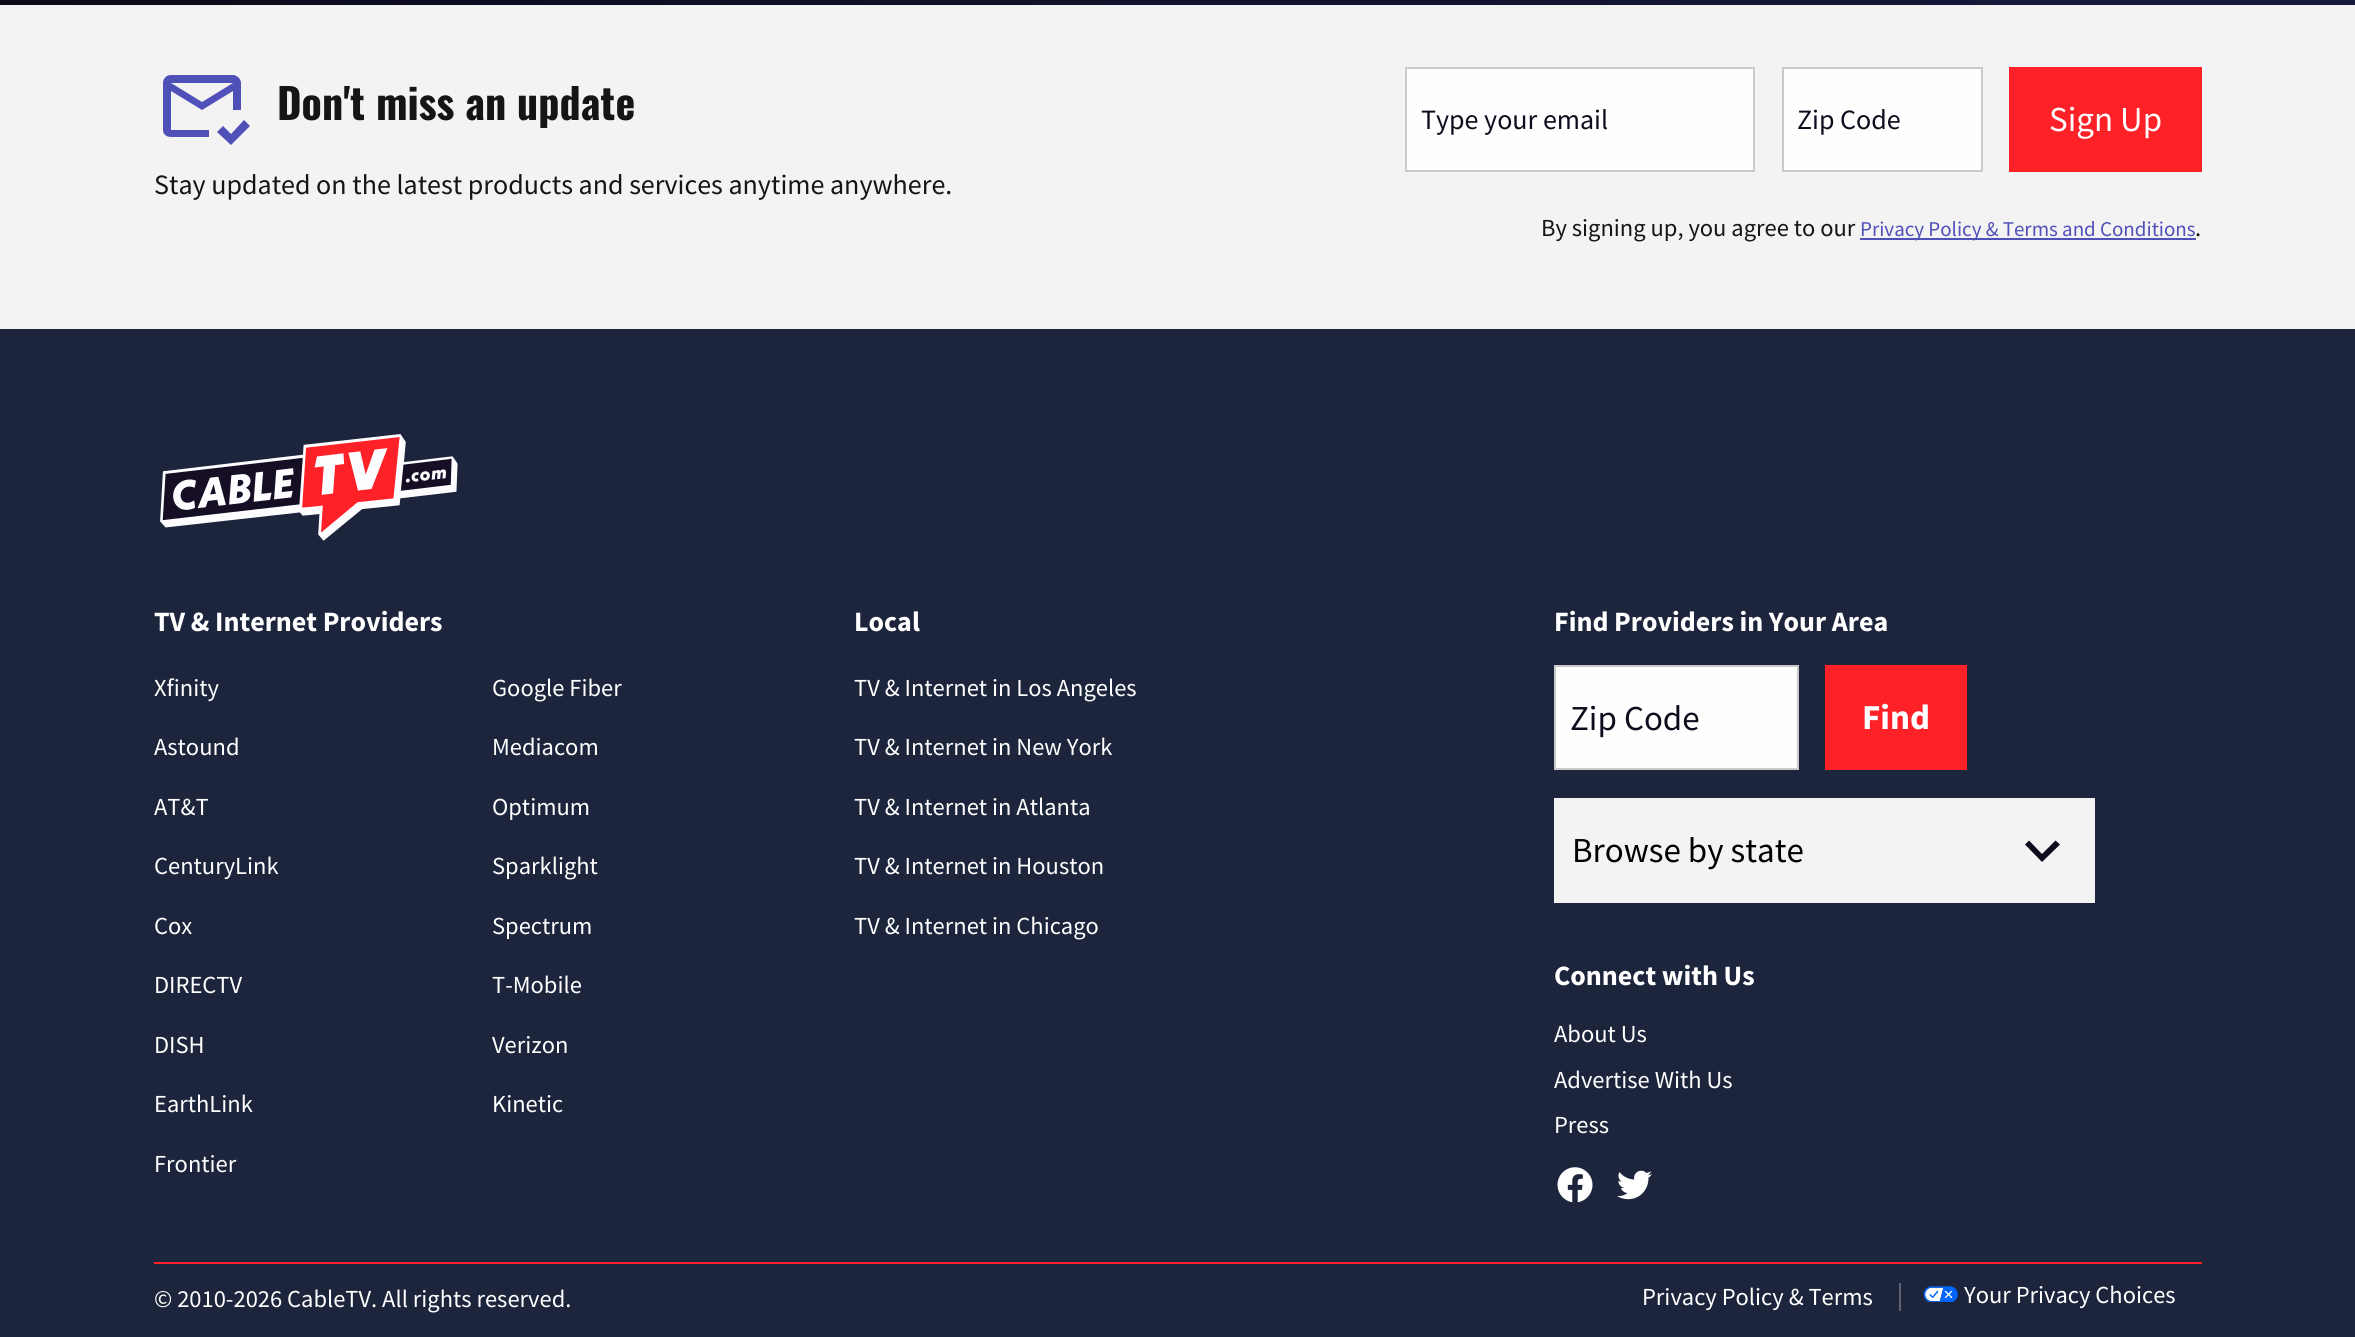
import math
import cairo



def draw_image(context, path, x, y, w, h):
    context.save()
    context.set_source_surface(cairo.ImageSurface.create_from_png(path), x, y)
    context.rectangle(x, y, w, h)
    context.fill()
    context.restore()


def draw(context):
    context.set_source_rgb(243 / 255, 243 / 255, 243 / 255)
    context.paint()
    gradient = cairo.LinearGradient(742, 434, 1614, -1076)
    gradient.add_color_stop_rgba(0, 10 / 255, 10 / 255, 25 / 255, 1)
    gradient.add_color_stop_rgba(1, 32 / 255, 32 / 255, 80 / 255, 1)
    context.set_source(gradient)
    context.rectangle(0, 0, 2355, 5)
    context.fill()
    context.set_source_rgb(80 / 255, 80 / 255, 185 / 255)
    context.set_fill_rule(cairo.FillRule.EVEN_ODD)
    context.new_path()
    context.move_to(250, 126)
    context.line_to(231, 145)
    context.line_to(217, 132)
    context.line_to(223, 126)
    context.line_to(231, 134)
    context.line_to(244, 120)
    context.close_path()
    context.move_to(209, 130)
    context.line_to(171, 130)
    context.line_to(171, 91)
    context.line_to(202, 110)
    context.line_to(233, 91)
    context.line_to(233, 110)
    context.line_to(241, 110)
    context.line_to(241, 83)
    context.curve_to(241, 79, 237, 75, 233, 75)
    context.line_to(171, 75)
    context.curve_to(166, 75, 163, 79, 163, 83)
    context.line_to(163, 130)
    context.curve_to(163, 134, 166, 137, 171, 137)
    context.line_to(209, 137)
    context.close_path()
    context.move_to(233, 83)
    context.line_to(202, 102)
    context.line_to(171, 83)
    context.close_path()
    context.fill()
    context.set_source_rgb(254 / 255, 254 / 255, 254 / 255)
    context.rectangle(1406, 68, 348, 103)
    context.fill_preserve()
    context.set_source_rgb(202 / 255, 202 / 255, 202 / 255)
    context.stroke()
    context.set_source_rgb(254 / 255, 254 / 255, 254 / 255)
    context.rectangle(1783, 68, 199, 103)
    context.fill_preserve()
    context.set_source_rgb(202 / 255, 202 / 255, 202 / 255)
    context.stroke()
    context.set_source_rgb(1, 33 / 255, 40 / 255)
    context.rectangle(2009, 67, 193, 105)
    context.fill()
    context.set_source_rgb(80 / 255, 80 / 255, 185 / 255)
    context.rectangle(1860, 238, 336, 2)
    context.fill()
    context.set_source_rgb(29 / 255, 37 / 255, 60 / 255)
    context.rectangle(0, 329, 2355, 1008)
    context.fill()
    draw_image(context, "images/1.png", 160, 434, 298, 107)
    context.set_source_rgb(254 / 255, 254 / 255, 254 / 255)
    context.rectangle(1555, 666, 243, 103)
    context.fill_preserve()
    context.set_source_rgb(202 / 255, 202 / 255, 202 / 255)
    context.stroke()
    context.set_source_rgb(1, 33 / 255, 40 / 255)
    context.rectangle(1825, 665, 142, 105)
    context.fill()
    context.set_source_rgb(243 / 255, 243 / 255, 243 / 255)
    context.rectangle(1554, 798, 541, 105)
    context.fill()
    context.set_source_rgb(12 / 255, 12 / 255, 29 / 255)
    context.new_path()
    context.move_to(2029, 840.5)
    context.line_to(2042, 854)
    context.line_to(2055.5, 840.5)
    context.line_to(2060, 844.5)
    context.line_to(2042, 862)
    context.line_to(2025, 844.5)
    context.close_path()
    context.fill()
    draw_image(context, "images/2.png", 1557, 1167, 36, 36)
    draw_image(context, "images/3.png", 1617, 1170, 35, 30)
    context.set_source_rgb(1, 33 / 255, 40 / 255)
    context.rectangle(154, 1262, 2048, 2)
    context.fill()
    context.set_source_rgb(93 / 255, 99 / 255, 115 / 255)
    context.rectangle(1899, 1283, 2, 28)
    context.fill()
    draw_image(context, "images/4.png", 1923, 1286, 35, 16)
    context.select_font_face("Oswald", cairo.FontSlant.NORMAL, cairo.FontWeight.BOLD)
    context.set_font_size(42)
    context.set_source_rgb(21 / 255, 21 / 255, 21 / 255)
    context.move_to(277, 120)
    context.show_text("Don't miss an update")
    context.select_font_face("Source Sans Pro")
    context.set_font_size(28)
    context.move_to(154, 194)
    context.show_text("Stay updated on the latest products and services anytime anywhere.")
    context.set_source_rgb(12 / 255, 12 / 255, 29 / 255)
    context.move_to(1421, 129)
    context.show_text("Type your email")
    context.move_to(1797, 129)
    context.show_text("Zip Code")
    context.set_font_size(35)
    context.set_source_rgb(1, 1, 1)
    context.move_to(2049, 131)
    context.show_text("Sign Up")
    context.set_font_size(24.5)
    context.set_source_rgb(21 / 255, 21 / 255, 21 / 255)
    context.move_to(1541, 236)
    context.show_text("By signing up, you agree to our")
    context.set_font_size(21)
    context.set_source_rgb(80 / 255, 80 / 255, 185 / 255)
    context.move_to(1860, 236)
    context.show_text("Privacy Policy & Terms and Conditions")
    context.set_font_size(24.5)
    context.set_source_rgb(21 / 255, 21 / 255, 21 / 255)
    context.move_to(2195, 236)
    context.show_text(".")
    context.select_font_face("Source Sans Pro", cairo.FontSlant.NORMAL, cairo.FontWeight.BOLD)
    context.set_font_size(28)
    context.set_source_rgb(1, 1, 1)
    context.move_to(154, 631)
    context.show_text("TV & Internet Providers")
    context.select_font_face("Source Sans Pro")
    context.set_font_size(24.5)
    context.move_to(154, 696)
    context.show_text("Xfinity")
    context.move_to(492, 696)
    context.show_text("Google Fiber")
    context.move_to(154, 755)
    context.show_text("Astound")
    context.move_to(492, 755)
    context.show_text("Mediacom")
    context.move_to(154, 815)
    context.show_text("AT&T")
    context.move_to(492, 815)
    context.show_text("Optimum")
    context.move_to(154, 874)
    context.show_text("CenturyLink")
    context.move_to(492, 874)
    context.show_text("Sparklight")
    context.move_to(154, 934)
    context.show_text("Cox")
    context.move_to(492, 934)
    context.show_text("Spectrum")
    context.move_to(154, 993)
    context.show_text("DIRECTV")
    context.move_to(492, 993)
    context.show_text("T-Mobile")
    context.move_to(154, 1053)
    context.show_text("DISH")
    context.move_to(492, 1053)
    context.show_text("Verizon")
    context.move_to(154, 1112)
    context.show_text("EarthLink")
    context.move_to(492, 1112)
    context.show_text("Kinetic")
    context.move_to(154, 1172)
    context.show_text("Frontier")
    context.select_font_face("Source Sans Pro", cairo.FontSlant.NORMAL, cairo.FontWeight.BOLD)
    context.set_font_size(28)
    context.move_to(854, 631)
    context.show_text("Local")
    context.select_font_face("Source Sans Pro")
    context.set_font_size(24.5)
    context.move_to(854, 696)
    context.show_text("TV & Internet in Los Angeles")
    context.move_to(854, 755)
    context.show_text("TV & Internet in New York")
    context.move_to(854, 815)
    context.show_text("TV & Internet in Atlanta")
    context.move_to(854, 874)
    context.show_text("TV & Internet in Houston")
    context.move_to(854, 934)
    context.show_text("TV & Internet in Chicago")
    context.select_font_face("Source Sans Pro", cairo.FontSlant.NORMAL, cairo.FontWeight.BOLD)
    context.set_font_size(28)
    context.move_to(1554, 631)
    context.show_text("Find Providers in Your Area")
    context.select_font_face("Source Sans Pro")
    context.set_font_size(35)
    context.set_source_rgb(12 / 255, 12 / 255, 29 / 255)
    context.move_to(1570, 730)
    context.show_text("Zip Code")
    context.select_font_face("Source Sans Pro", cairo.FontSlant.NORMAL, cairo.FontWeight.BOLD)
    context.set_source_rgb(1, 1, 1)
    context.move_to(1862, 729)
    context.show_text("Find")
    context.select_font_face("Source Sans Pro")
    context.set_source_rgb(0, 0, 0)
    context.move_to(1572, 862)
    context.show_text("Browse by state")
    context.select_font_face("Source Sans Pro", cairo.FontSlant.NORMAL, cairo.FontWeight.BOLD)
    context.set_font_size(28)
    context.set_source_rgb(1, 1, 1)
    context.move_to(1554, 985)
    context.show_text("Connect with Us")
    context.select_font_face("Source Sans Pro")
    context.set_font_size(24.5)
    context.move_to(1554, 1042)
    context.show_text("About Us")
    context.move_to(1554, 1088)
    context.show_text("Advertise With Us")
    context.move_to(1554, 1133)
    context.show_text("Press")
    context.move_to(154, 1307)
    context.show_text("© 2010-2026 CableTV. All rights reserved.")
    context.move_to(1642, 1305)
    context.show_text("Privacy Policy & Terms")
    context.move_to(1964, 1303)
    context.show_text("Your Privacy Choices")


surface = cairo.ImageSurface(cairo.Format.RGB24, 2355, 1337)
context = cairo.Context(surface)
options = cairo.FontOptions()
options.set_hint_metrics(cairo.HintMetrics.OFF)
options.set_hint_style(cairo.HintStyle.NONE)
context.set_font_options(options)
context.set_miter_limit(4)
draw(context)
surface.write_to_png("out.png")
